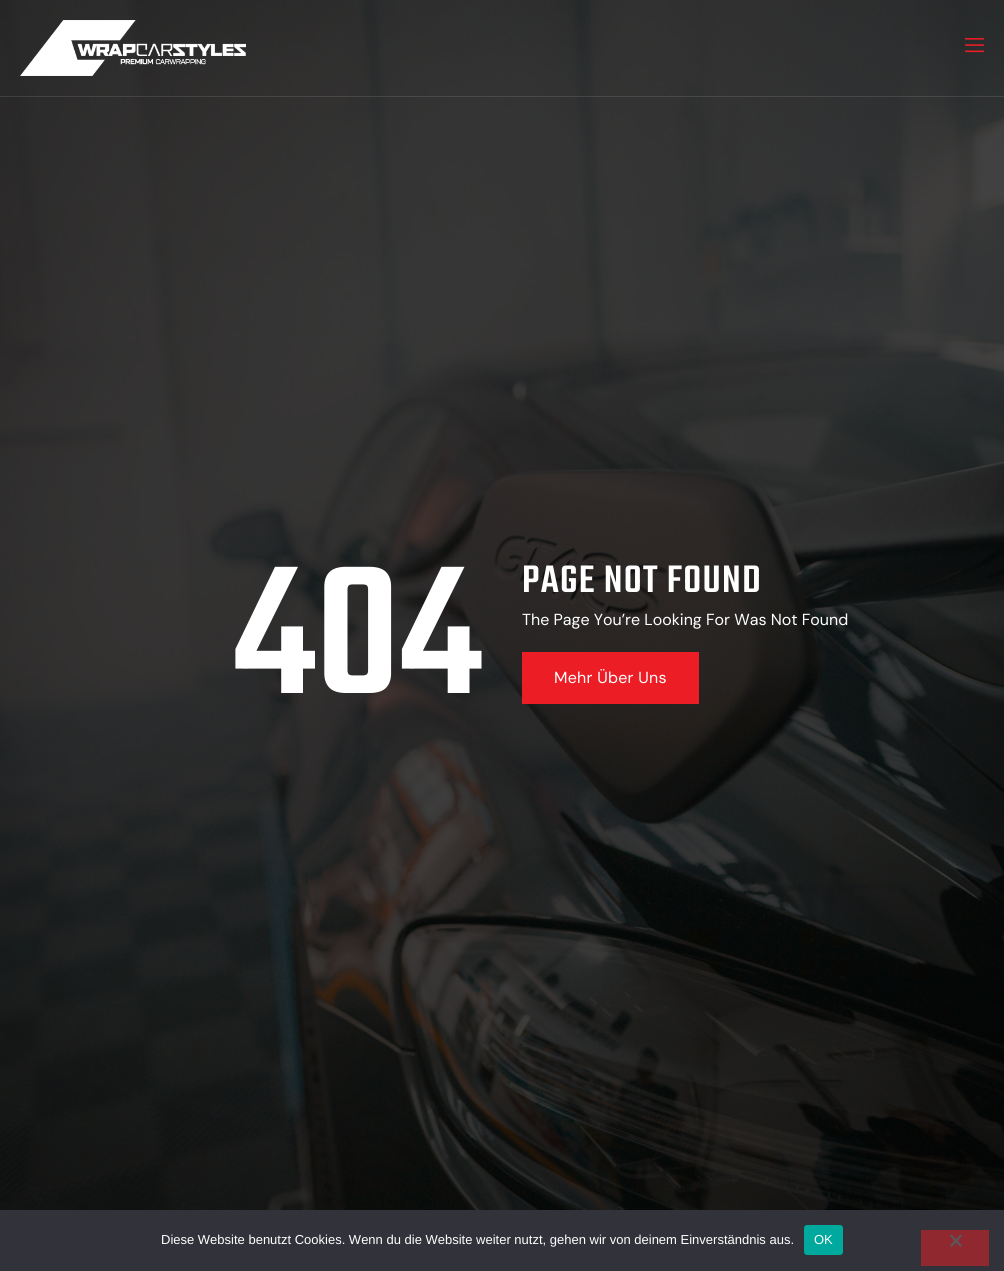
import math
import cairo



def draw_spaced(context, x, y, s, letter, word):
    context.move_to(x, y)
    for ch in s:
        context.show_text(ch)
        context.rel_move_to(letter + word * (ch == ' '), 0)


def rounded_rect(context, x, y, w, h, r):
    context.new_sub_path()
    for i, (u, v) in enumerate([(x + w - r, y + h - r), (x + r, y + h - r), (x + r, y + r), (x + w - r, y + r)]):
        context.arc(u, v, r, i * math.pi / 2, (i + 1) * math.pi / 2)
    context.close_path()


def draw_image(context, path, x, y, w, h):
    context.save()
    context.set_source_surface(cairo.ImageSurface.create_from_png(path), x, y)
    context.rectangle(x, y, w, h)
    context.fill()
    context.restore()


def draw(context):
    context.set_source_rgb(1, 1, 1)
    context.paint()
    draw_image(context, "images/3.png", 0, 0, 1004, 1210)
    context.set_source_rgba(1, 1, 1, 0.11)
    context.rectangle(0, 96, 1004, 1)
    context.fill()
    draw_image(context, "images/1.png", 20, 20, 226, 56)
    draw_image(context, "images/2.png", 965, 38, 19, 15)
    context.set_source_rgb(237 / 255, 29 / 255, 38 / 255)
    context.rectangle(522, 652, 177, 52)
    context.fill()
    context.set_source_rgb(50 / 255, 50 / 255, 58 / 255)
    context.rectangle(0, 1210, 1004, 61)
    context.fill()
    context.set_source_rgb(0, 169 / 255, 157 / 255)
    rounded_rect(context, 804, 1225, 39, 30, 3)
    context.fill()
    context.set_source_rgb(144 / 255, 40 / 255, 48 / 255)
    context.rectangle(921, 1230, 68, 36)
    context.fill()
    context.set_source_rgb(89 / 255, 89 / 255, 93 / 255)
    context.new_path()
    context.move_to(960.5, 1234.5)
    context.line_to(962, 1236)
    context.line_to(951.5, 1247)
    context.line_to(950, 1245.5)
    context.close_path()
    context.fill()
    context.new_path()
    context.move_to(950, 1236)
    context.line_to(951.5, 1234.5)
    context.line_to(962, 1245.5)
    context.line_to(960.5, 1247)
    context.close_path()
    context.fill()
    context.select_font_face("Teko Medium")
    context.set_font_size(200)
    context.set_source_rgb(1, 1, 1)
    draw_spaced(context, 234, 693, "404", 0.5, 0)
    context.set_font_size(42)
    draw_spaced(context, 522, 592, "PAGE NOT FOUND", 1.25, 0)
    context.select_font_face("DM Sans")
    context.set_font_size(16)
    context.move_to(522, 625)
    context.show_text("The Page You’re Looking For Was Not Found")
    draw_spaced(context, 554, 683, "Mehr Über Uns", 0.25, 0)
    context.select_font_face("Liberation Sans")
    context.set_font_size(13)
    context.move_to(161, 1244)
    context.show_text("Diese Website benutzt Cookies. Wenn du die Website weiter nutzt, gehen wir von deinem Einverständnis aus.")
    context.move_to(814, 1244)
    context.show_text("OK")


surface = cairo.ImageSurface(cairo.Format.RGB24, 1004, 1271)
context = cairo.Context(surface)
options = cairo.FontOptions()
options.set_hint_metrics(cairo.HintMetrics.OFF)
options.set_hint_style(cairo.HintStyle.NONE)
context.set_font_options(options)
context.set_miter_limit(4)
draw(context)
surface.write_to_png("out.png")
